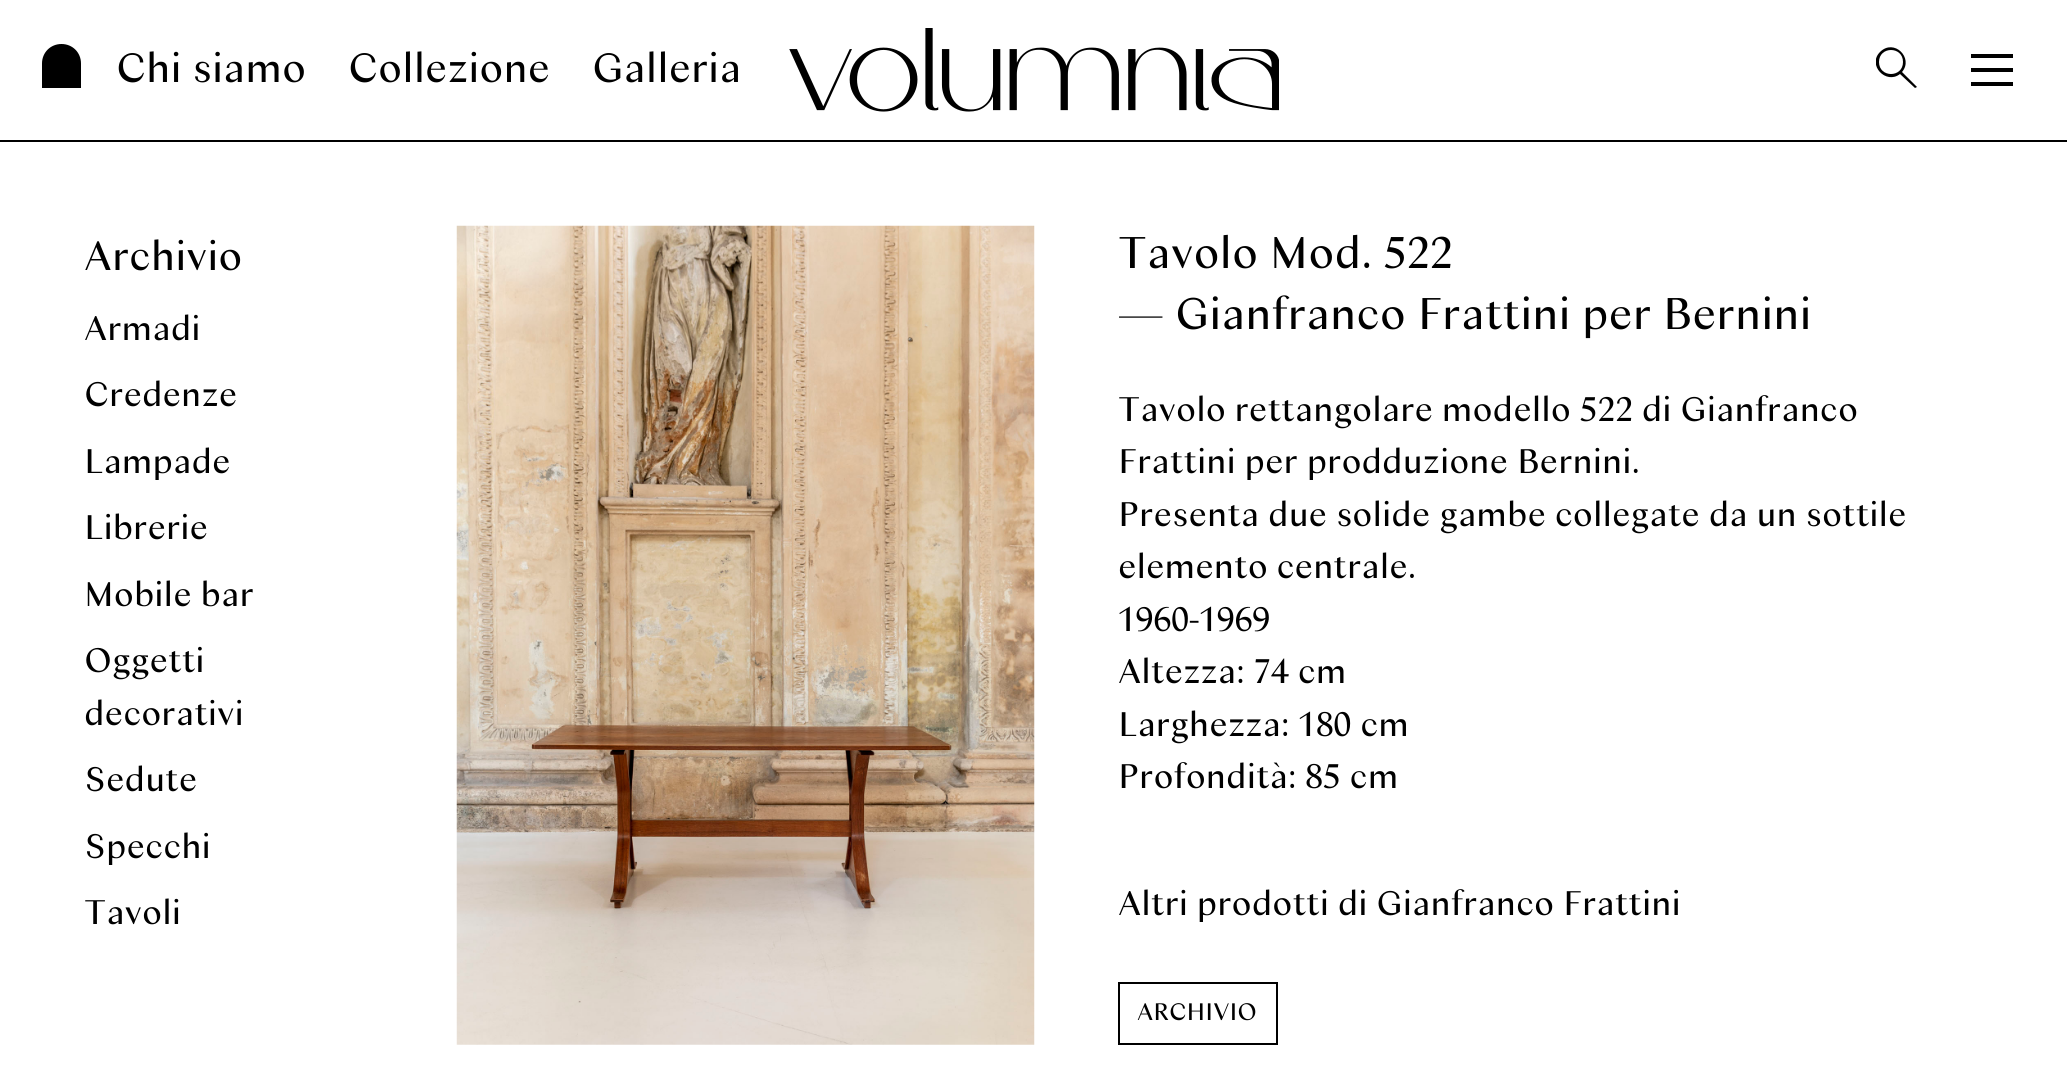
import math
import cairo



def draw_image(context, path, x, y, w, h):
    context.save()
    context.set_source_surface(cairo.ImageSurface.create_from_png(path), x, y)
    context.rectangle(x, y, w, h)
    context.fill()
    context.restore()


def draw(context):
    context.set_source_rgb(1, 1, 1)
    context.paint()
    context.set_source_rgb(0, 0, 0)
    context.rectangle(0, 140, 2067, 2)
    context.fill()
    context.new_path()
    context.move_to(61.5, 44)
    context.curve_to(72.5, 44, 81, 52.5, 81, 63.5)
    context.line_to(81, 88)
    context.line_to(42, 88)
    context.line_to(42, 63.5)
    context.curve_to(42, 52.5, 50.5, 44, 61.5, 44)
    context.close_path()
    context.fill()
    draw_image(context, "images/1.png", 789, 28, 490, 84)
    context.save()
    context.rectangle(1876, 47, 42, 42)
    context.clip()
    context.set_fill_rule(cairo.FillRule.EVEN_ODD)
    context.new_path()
    context.move_to(1903, 62)
    context.curve_to(1903, 78, 1879, 78, 1879, 62)
    context.curve_to(1879, 46, 1903, 46, 1903, 62)
    context.close_path()
    context.move_to(1900, 74)
    context.curve_to(1886, 85, 1867, 65, 1880, 52)
    context.curve_to(1894, 38, 1914, 58, 1902, 72)
    context.line_to(1917, 87)
    context.line_to(1915, 88)
    context.close_path()
    context.fill()
    context.restore()
    context.rectangle(1971, 68, 42, 4)
    context.fill()
    context.rectangle(1971, 54, 42, 4)
    context.fill()
    context.rectangle(1971, 82, 42, 4)
    context.fill()
    draw_image(context, "images/2.png", 456, 225, 579, 820)
    context.rectangle(1119, 983, 158, 61)
    context.stroke()
    context.select_font_face("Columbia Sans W")
    context.set_font_size(42)
    context.move_to(116, 82)
    context.show_text("Chi siamo")
    context.move_to(348, 82)
    context.show_text("Collezione")
    context.move_to(592, 82)
    context.show_text("Galleria")
    context.move_to(84, 270)
    context.show_text("Archivio")
    context.set_font_size(35)
    context.move_to(84, 340)
    context.show_text("Armadi")
    context.move_to(84, 406)
    context.show_text("Credenze")
    context.move_to(84, 473)
    context.show_text("Lampade")
    context.move_to(84, 539)
    context.show_text("Librerie")
    context.move_to(84, 606)
    context.show_text("Mobile bar")
    context.move_to(84, 672)
    context.show_text("Oggetti")
    context.move_to(84, 725)
    context.show_text("decorativi")
    context.move_to(84, 791)
    context.show_text("Sedute")
    context.move_to(84, 858)
    context.show_text("Specchi")
    context.move_to(84, 924)
    context.show_text("Tavoli")
    context.set_font_size(45.5)
    context.move_to(1118, 268)
    context.show_text("Tavolo Mod. 522")
    context.move_to(1118, 329)
    context.show_text("— Gianfranco Frattini per Bernini")
    context.set_font_size(35)
    context.move_to(1118, 421)
    context.show_text("Tavolo rettangolare modello 522 di Gianfranco")
    context.move_to(1118, 473)
    context.show_text("Frattini per prodduzione Bernini.")
    context.move_to(1118, 526)
    context.show_text("Presenta due solide gambe collegate da un sottile")
    context.move_to(1118, 578)
    context.show_text("elemento centrale.")
    context.move_to(1118, 631)
    context.show_text("1960-1969")
    context.move_to(1118, 683)
    context.show_text("Altezza: 74 cm")
    context.move_to(1118, 736)
    context.show_text("Larghezza: 180 cm")
    context.move_to(1118, 788)
    context.show_text("Profondità: 85 cm")
    context.move_to(1118, 915)
    context.show_text("Altri prodotti di Gianfranco Frattini")
    context.set_font_size(24.5)
    context.move_to(1137, 1020)
    context.show_text("ARCHIVIO")


surface = cairo.ImageSurface(cairo.Format.RGB24, 2067, 1068)
context = cairo.Context(surface)
options = cairo.FontOptions()
options.set_hint_metrics(cairo.HintMetrics.OFF)
options.set_hint_style(cairo.HintStyle.NONE)
context.set_font_options(options)
context.set_miter_limit(4)
draw(context)
surface.write_to_png("out.png")
